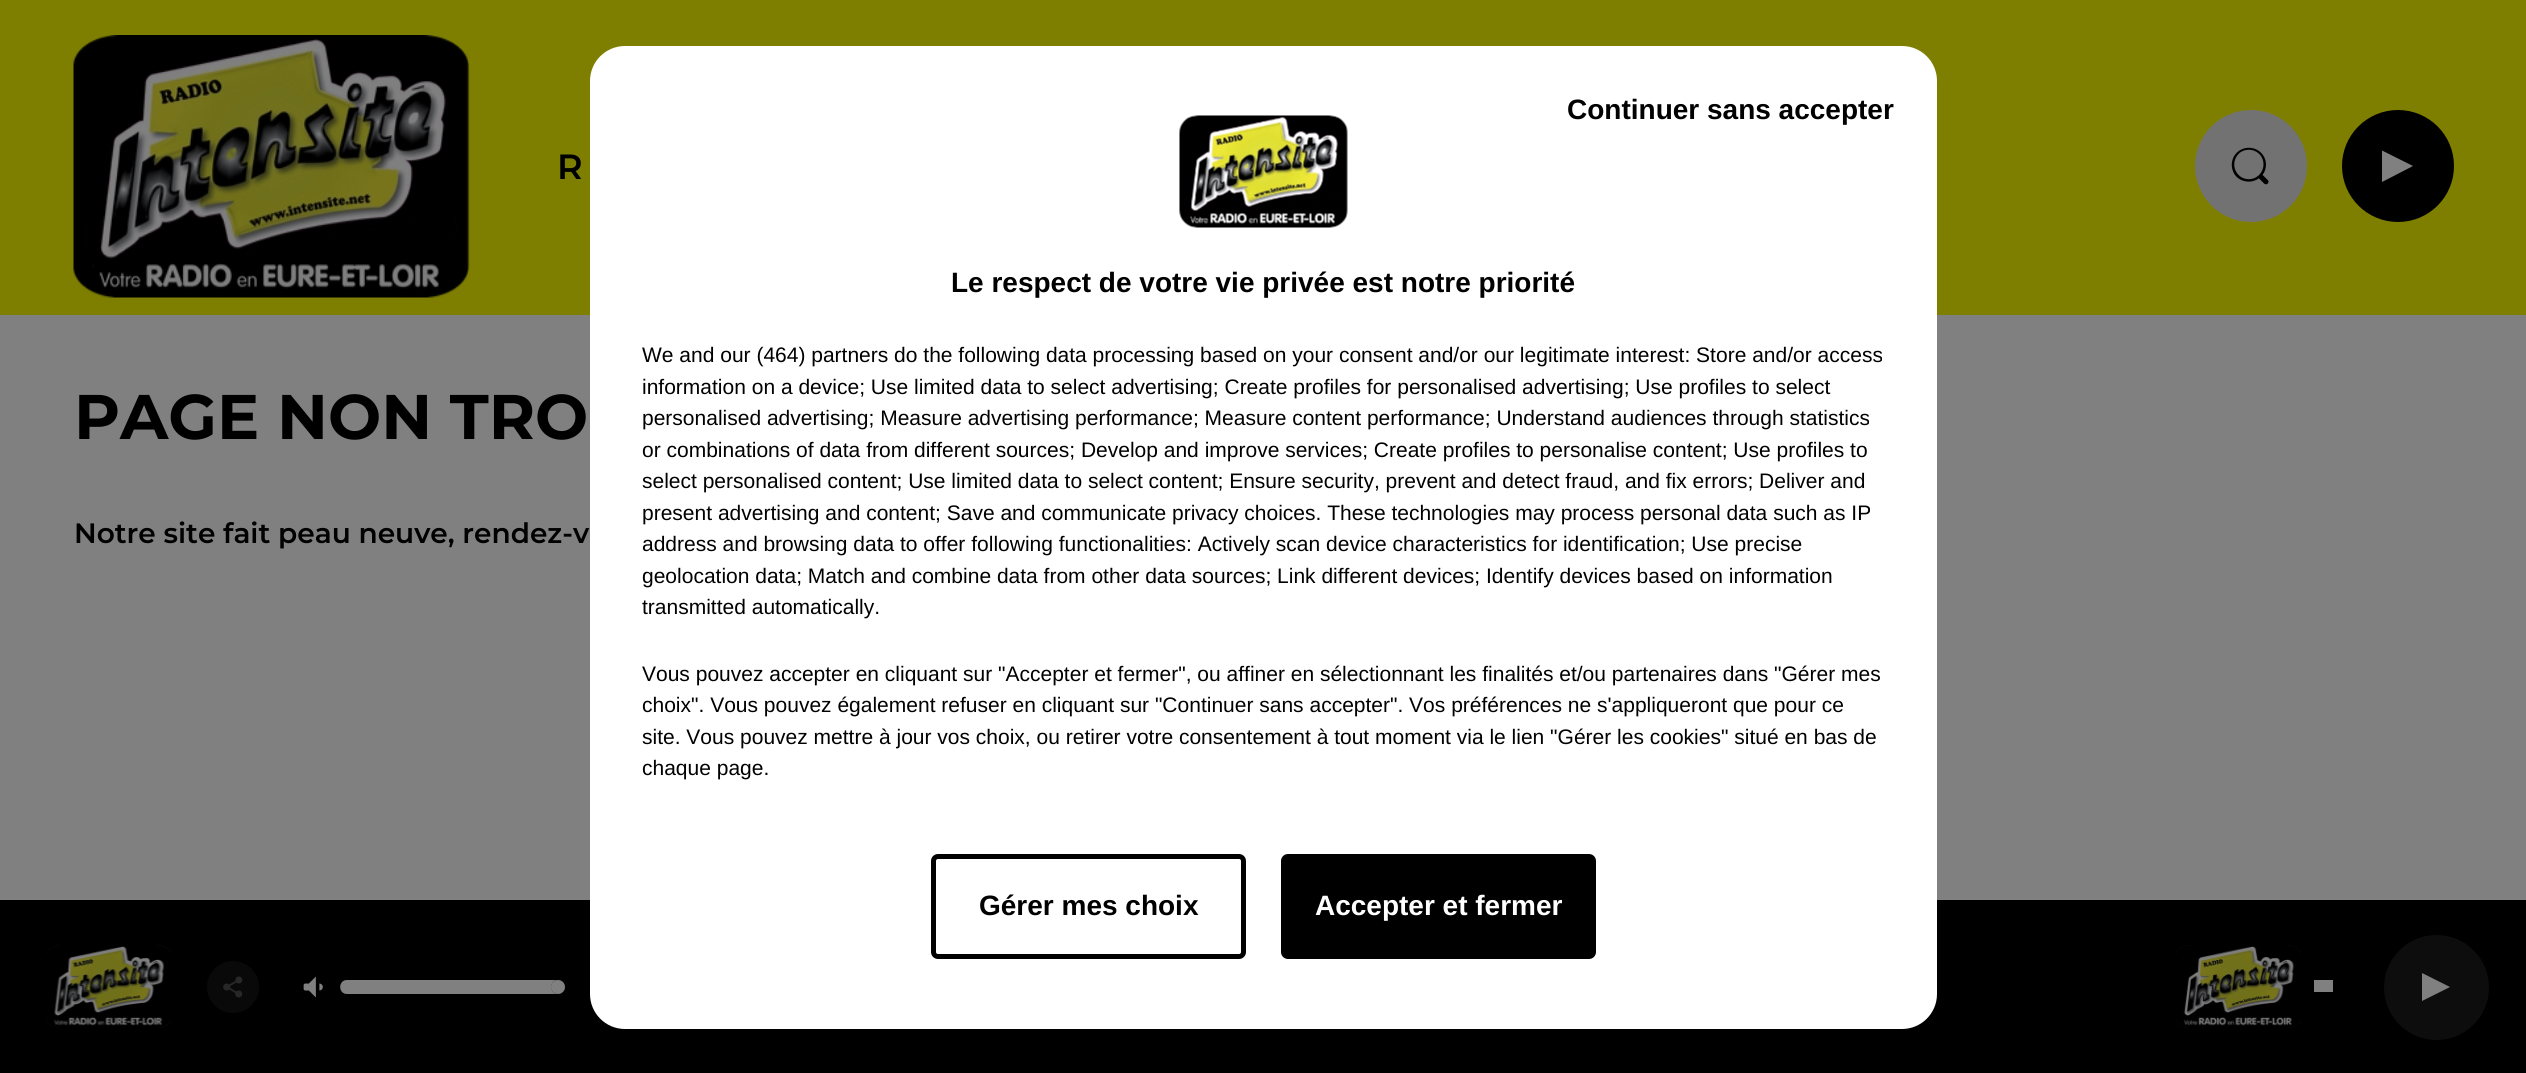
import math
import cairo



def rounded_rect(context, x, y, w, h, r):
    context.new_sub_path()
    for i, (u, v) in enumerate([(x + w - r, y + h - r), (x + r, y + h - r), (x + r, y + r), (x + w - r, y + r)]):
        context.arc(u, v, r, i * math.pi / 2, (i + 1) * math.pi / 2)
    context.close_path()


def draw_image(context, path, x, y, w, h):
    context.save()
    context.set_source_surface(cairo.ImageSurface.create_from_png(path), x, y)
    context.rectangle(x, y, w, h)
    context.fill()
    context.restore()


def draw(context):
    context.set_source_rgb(128 / 255, 128 / 255, 128 / 255)
    context.paint()
    context.set_source_rgb(126 / 255, 127 / 255, 1 / 255)
    context.rectangle(0, 0, 2526, 315)
    context.fill()
    draw_image(context, "images/1.png", 73, 35, 397, 263)
    context.set_source_rgb(114 / 255, 114 / 255, 114 / 255)
    context.arc(2251, 166, 54, 0, 2 * math.pi)
    context.fill_preserve()
    context.set_line_width(4)
    context.stroke()
    draw_image(context, "images/2.png", 2231, 147, 38, 38)
    context.set_source_rgb(0, 0, 0)
    context.arc(2398, 166, 54, 0, 2 * math.pi)
    context.fill_preserve()
    context.stroke()
    context.set_source_rgb(128 / 255, 128 / 255, 128 / 255)
    context.new_path()
    context.move_to(2413, 166)
    context.line_to(2382, 182)
    context.line_to(2382, 150.5)
    context.close_path()
    context.fill()
    context.set_source_rgb(0, 0, 0)
    context.rectangle(0, 900, 2526, 173)
    context.fill()
    draw_image(context, "images/3.png", 46, 945, 125, 83)
    context.set_source_rgb(9 / 255, 9 / 255, 9 / 255)
    context.arc(233, 987, 26, 0, 2 * math.pi)
    context.fill()
    draw_image(context, "images/4.png", 223, 976, 20, 22)
    draw_image(context, "images/5.png", 303, 976, 20, 22)
    context.set_source_rgb(26 / 255, 26 / 255, 26 / 255)
    rounded_rect(context, 340, 980, 225, 14, 7)
    context.fill()
    context.set_source_rgb(128 / 255, 128 / 255, 128 / 255)
    context.new_path()
    context.move_to(347, 980)
    context.curve_to(338, 980, 338, 994, 347, 994)
    context.line_to(558, 994)
    context.curve_to(549, 994, 549, 980, 558, 980)
    context.close_path()
    context.fill()
    context.arc(558, 987, 7, 0, 2 * math.pi)
    context.fill()
    draw_image(context, "images/6.png", 2176, 945, 125, 83)
    context.rectangle(2314, 980, 19, 12)
    context.fill()
    context.set_source_rgb(13 / 255, 13 / 255, 13 / 255)
    context.arc(2436.5, 987.5, 52.5, 0, 2 * math.pi)
    context.fill()
    context.set_source_rgb(128 / 255, 128 / 255, 128 / 255)
    context.new_path()
    context.move_to(2450, 987)
    context.line_to(2422, 1001)
    context.line_to(2422, 973)
    context.close_path()
    context.fill()
    context.set_source_rgb(1, 1, 1)
    rounded_rect(context, 590, 46, 1347, 983, 35)
    context.fill()
    rounded_rect(context, 933.5, 856.5, 310, 100, 4.5)
    context.set_source_rgb(0, 0, 0)
    context.set_line_width(5)
    context.stroke()
    rounded_rect(context, 1283.5, 856.5, 310, 100, 4.5)
    context.fill_preserve()
    context.stroke()
    draw_image(context, "images/7.png", 1179, 115, 169, 113)
    context.select_font_face("Montserrat SemiBold")
    context.set_font_size(35)
    context.move_to(557, 179)
    context.show_text("R")
    context.select_font_face("Montserrat", cairo.FontSlant.NORMAL, cairo.FontWeight.BOLD)
    context.set_font_size(63)
    context.move_to(74, 439)
    context.show_text("PAGE NON TRO")
    context.select_font_face("Montserrat SemiBold")
    context.set_font_size(28)
    context.move_to(74, 543)
    context.show_text("Notre site fait peau neuve, rendez-v")
    context.select_font_face("Liberation Sans", cairo.FontSlant.NORMAL, cairo.FontWeight.BOLD)
    context.move_to(1567, 119)
    context.show_text("Continuer sans accepter")
    context.move_to(979, 915)
    context.show_text("Gérer mes choix")
    context.set_source_rgb(1, 1, 1)
    context.move_to(1315, 915)
    context.show_text("Accepter et fermer")
    context.set_source_rgb(0, 0, 0)
    context.move_to(951, 292)
    context.show_text("Le respect de votre vie privée est notre priorité")
    context.select_font_face("Liberation Sans")
    context.set_font_size(21)
    context.move_to(642, 362)
    context.show_text("We and our (464) partners do the following data processing based on your consent and/or our legitimate interest: Store and/or access")
    context.move_to(642, 394)
    context.show_text("information on a device; Use limited data to select advertising; Create profiles for personalised advertising; Use profiles to select")
    context.move_to(642, 425)
    context.show_text("personalised advertising; Measure advertising performance; Measure content performance; Understand audiences through statistics")
    context.move_to(642, 457)
    context.show_text("or combinations of data from different sources; Develop and improve services; Create profiles to personalise content; Use profiles to")
    context.move_to(642, 488)
    context.show_text("select personalised content; Use limited data to select content; Ensure security, prevent and detect fraud, and fix errors; Deliver and")
    context.move_to(642, 520)
    context.show_text("present advertising and content; Save and communicate privacy choices. These technologies may process personal data such as IP")
    context.move_to(642, 551)
    context.show_text("address and browsing data to offer following functionalities: Actively scan device characteristics for identification; Use precise")
    context.move_to(642, 583)
    context.show_text("geolocation data; Match and combine data from other data sources; Link different devices; Identify devices based on information")
    context.move_to(642, 614)
    context.show_text("transmitted automatically.")
    context.move_to(642, 681)
    context.show_text("Vous pouvez accepter en cliquant sur \"Accepter et fermer\", ou affiner en sélectionnant les finalités et/ou partenaires dans \"Gérer mes")
    context.move_to(642, 712)
    context.show_text("choix\". Vous pouvez également refuser en cliquant sur \"Continuer sans accepter\". Vos préférences ne s'appliqueront que pour ce")
    context.move_to(642, 744)
    context.show_text("site. Vous pouvez mettre à jour vos choix, ou retirer votre consentement à tout moment via le lien \"Gérer les cookies\" situé en bas de")
    context.move_to(642, 775)
    context.show_text("chaque page.")


surface = cairo.ImageSurface(cairo.Format.RGB24, 2526, 1073)
context = cairo.Context(surface)
options = cairo.FontOptions()
options.set_hint_metrics(cairo.HintMetrics.OFF)
options.set_hint_style(cairo.HintStyle.NONE)
context.set_font_options(options)
context.set_miter_limit(4)
draw(context)
surface.write_to_png("out.png")
